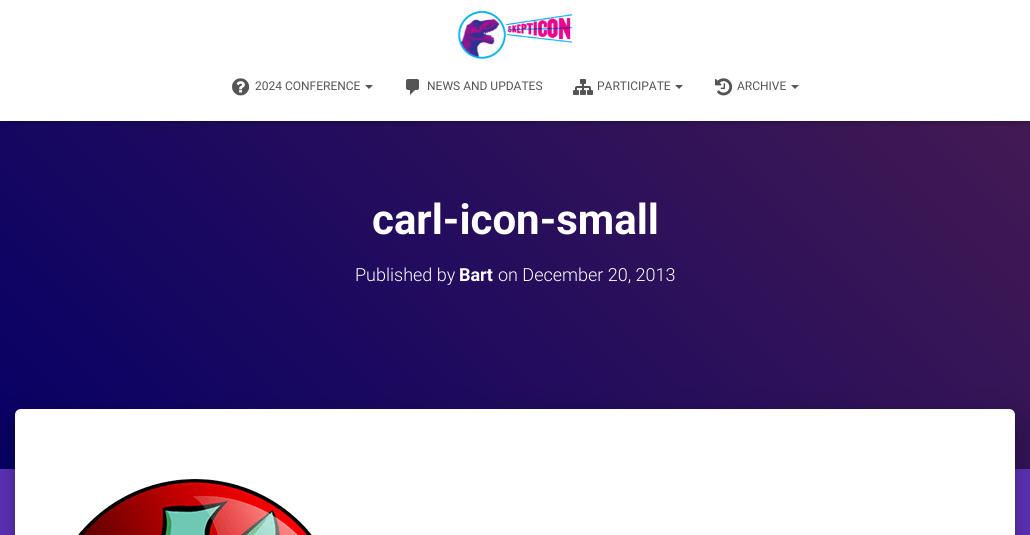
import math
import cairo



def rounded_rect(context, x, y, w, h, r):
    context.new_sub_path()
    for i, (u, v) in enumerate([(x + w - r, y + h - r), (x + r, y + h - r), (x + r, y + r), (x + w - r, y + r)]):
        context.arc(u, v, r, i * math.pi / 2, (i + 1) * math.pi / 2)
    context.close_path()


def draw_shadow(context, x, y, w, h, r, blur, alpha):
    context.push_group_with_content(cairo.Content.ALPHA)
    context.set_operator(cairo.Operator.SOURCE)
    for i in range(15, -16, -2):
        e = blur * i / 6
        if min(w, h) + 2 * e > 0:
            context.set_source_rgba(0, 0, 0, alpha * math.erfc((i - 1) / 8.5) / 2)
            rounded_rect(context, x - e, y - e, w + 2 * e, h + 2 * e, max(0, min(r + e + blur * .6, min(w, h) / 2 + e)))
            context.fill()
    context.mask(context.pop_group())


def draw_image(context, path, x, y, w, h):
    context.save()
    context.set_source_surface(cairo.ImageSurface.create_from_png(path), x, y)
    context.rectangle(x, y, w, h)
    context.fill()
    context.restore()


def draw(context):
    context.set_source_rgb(94 / 255, 50 / 255, 186 / 255)
    context.paint()
    gradient = cairo.LinearGradient(140, 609, 890, -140)
    gradient.add_color_stop_rgba(0, 6 / 255, 0, 102 / 255, 1)
    gradient.add_color_stop_rgba(1, 72 / 255, 28 / 255, 81 / 255, 1)
    context.set_source(gradient)
    context.rectangle(0, 121, 1030, 348)
    context.fill()
    context.set_source_rgb(0, 0, 0)
    draw_shadow(context, 2, 6, 1026, 117, 0, 2.5, 0.1)
    draw_shadow(context, 0, 1, 1030, 121, 0, 5, 0.12)
    draw_shadow(context, 6, 7, 1018, 109, 0, 5, 0.42)
    context.set_source_rgb(1, 1, 1)
    context.rectangle(0, 0, 1030, 121)
    context.fill()
    draw_image(context, "images/1.png", 457, 10, 116, 49)
    draw_image(context, "images/2.png", 232, 78, 18, 18)
    context.set_source_rgb(85 / 255, 85 / 255, 85 / 255)
    context.new_path()
    context.move_to(365, 85)
    context.line_to(373, 85)
    context.line_to(369, 89)
    context.close_path()
    context.fill()
    draw_image(context, "images/3.png", 406, 79, 13, 16)
    draw_image(context, "images/4.png", 573, 79, 20, 16)
    context.new_path()
    context.move_to(675, 85)
    context.line_to(683, 85)
    context.line_to(679, 89)
    context.close_path()
    context.fill()
    draw_image(context, "images/5.png", 715, 78, 18, 18)
    context.new_path()
    context.move_to(791, 85)
    context.line_to(799, 85)
    context.line_to(795, 89)
    context.close_path()
    context.fill()
    context.set_source_rgb(0, 0, 0)
    draw_shadow(context, 20, 422, 990, 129, 1, 5, 0.2)
    draw_shadow(context, 10, 410, 1010, 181, 11, 15, 0.12)
    draw_shadow(context, 13, 423, 1004, 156, 8, 12, 0.14)
    context.set_source_rgb(1, 1, 1)
    context.new_path()
    context.move_to(21, 409)
    context.line_to(1009, 409)
    context.curve_to(1012.5, 409, 1015, 411.5, 1015, 415)
    context.line_to(1015, 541)
    context.line_to(15, 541)
    context.line_to(15, 415)
    context.curve_to(15, 411.5, 17.5, 409, 21, 409)
    context.close_path()
    context.fill()
    draw_image(context, "images/6.png", 78, 479, 234, 56)
    context.select_font_face("Roboto")
    context.set_font_size(12)
    context.set_source_rgb(85 / 255, 85 / 255, 85 / 255)
    context.move_to(255, 90)
    context.show_text("2024 CONFERENCE")
    context.move_to(427, 90)
    context.show_text("NEWS AND UPDATES")
    context.move_to(597, 90)
    context.show_text("PARTICIPATE")
    context.move_to(737, 90)
    context.show_text("ARCHIVE")
    context.select_font_face("Roboto", cairo.FontSlant.NORMAL, cairo.FontWeight.BOLD)
    context.set_font_size(42)
    context.set_source_rgb(1, 1, 1)
    context.move_to(372, 234)
    context.show_text("carl-icon-small")
    context.select_font_face("Roboto Light")
    context.set_font_size(18)
    context.move_to(355, 281)
    context.show_text("Published by")
    context.select_font_face("Roboto", cairo.FontSlant.NORMAL, cairo.FontWeight.BOLD)
    context.move_to(459, 281)
    context.show_text("Bart")
    context.select_font_face("Roboto Light")
    context.move_to(498, 281)
    context.show_text("on December 20, 2013")


surface = cairo.ImageSurface(cairo.Format.RGB24, 1030, 535)
context = cairo.Context(surface)
options = cairo.FontOptions()
options.set_hint_metrics(cairo.HintMetrics.OFF)
options.set_hint_style(cairo.HintStyle.NONE)
context.set_font_options(options)
context.set_miter_limit(4)
draw(context)
surface.write_to_png("out.png")
